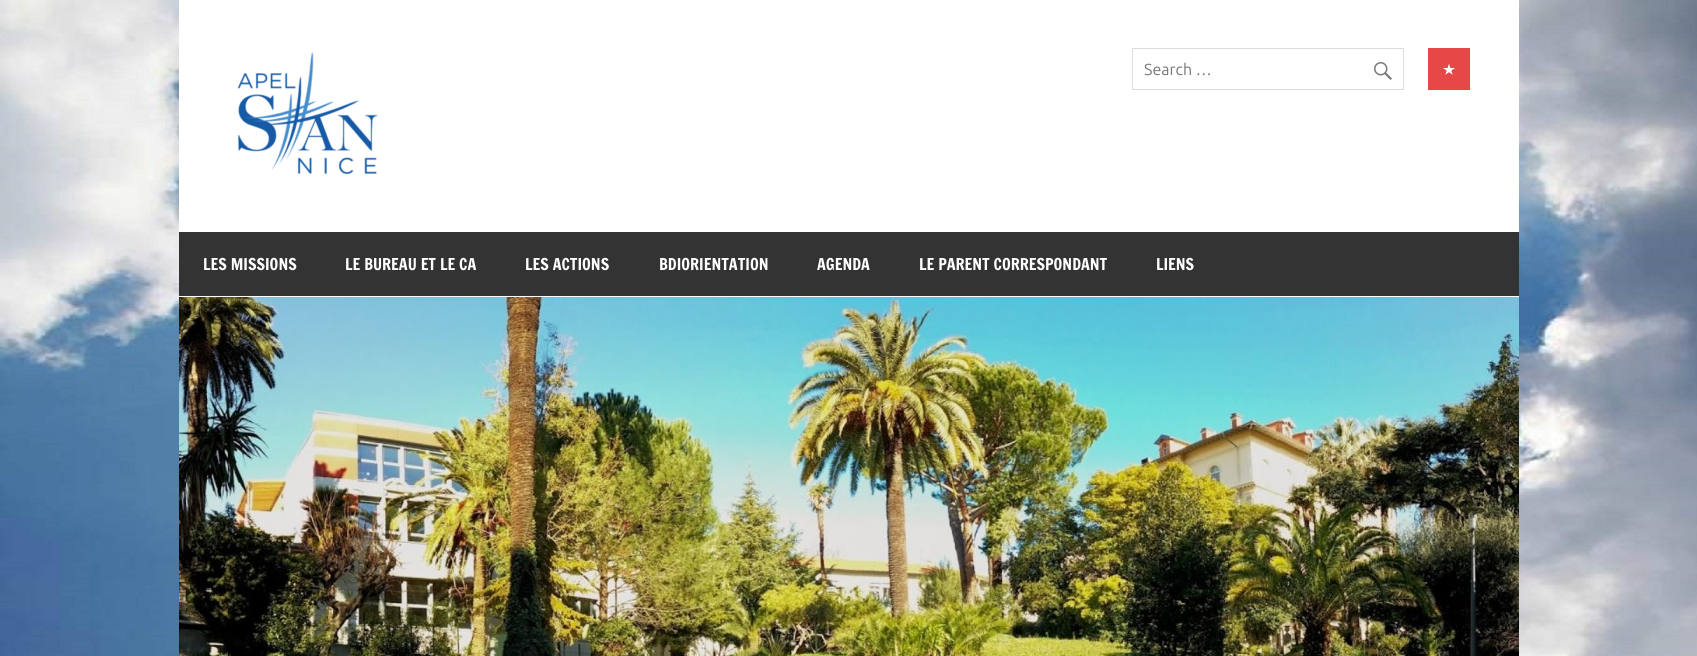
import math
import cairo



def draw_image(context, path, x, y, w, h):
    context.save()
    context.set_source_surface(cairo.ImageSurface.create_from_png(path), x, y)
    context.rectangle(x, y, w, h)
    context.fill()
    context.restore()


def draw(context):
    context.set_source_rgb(1, 1, 1)
    context.paint()
    draw_image(context, "images/1.png", 0, 0, 1697, 656)
    context.set_source_rgb(1, 1, 1)
    context.rectangle(179, 0, 1340, 297)
    context.fill()
    draw_image(context, "images/2.png", 237, 52, 143, 123)
    context.rectangle(1132.5, 48.5, 271, 41)
    context.set_source_rgb(221 / 255, 221 / 255, 221 / 255)
    context.set_line_width(1)
    context.stroke()
    draw_image(context, "images/3.png", 1374, 62, 18, 18)
    context.set_source_rgb(232 / 255, 71 / 255, 71 / 255)
    context.rectangle(1428, 48, 42, 42)
    context.fill()
    draw_image(context, "images/4.png", 1443, 64, 12, 11)
    context.set_source_rgb(51 / 255, 51 / 255, 51 / 255)
    context.rectangle(179, 232, 1340, 64)
    context.fill()
    draw_image(context, "images/5.png", 179, 297, 1340, 359)
    context.select_font_face("Ubuntu")
    context.set_font_size(16)
    context.set_source_rgb(117 / 255, 117 / 255, 117 / 255)
    context.move_to(1144, 75)
    context.show_text("Search …")
    context.select_font_face("Francois One")
    context.set_source_rgb(1, 1, 1)
    context.move_to(203, 270)
    context.show_text("LES MISSIONS")
    context.move_to(345, 270)
    context.show_text("LE BUREAU ET LE CA")
    context.move_to(525, 270)
    context.show_text("LES ACTIONS")
    context.move_to(659, 270)
    context.show_text("BDIORIENTATION")
    context.move_to(817, 270)
    context.show_text("AGENDA")
    context.move_to(919, 270)
    context.show_text("LE PARENT CORRESPONDANT")
    context.move_to(1156, 270)
    context.show_text("LIENS")


surface = cairo.ImageSurface(cairo.Format.RGB24, 1697, 656)
context = cairo.Context(surface)
options = cairo.FontOptions()
options.set_hint_metrics(cairo.HintMetrics.OFF)
options.set_hint_style(cairo.HintStyle.NONE)
context.set_font_options(options)
context.set_miter_limit(4)
draw(context)
surface.write_to_png("out.png")
